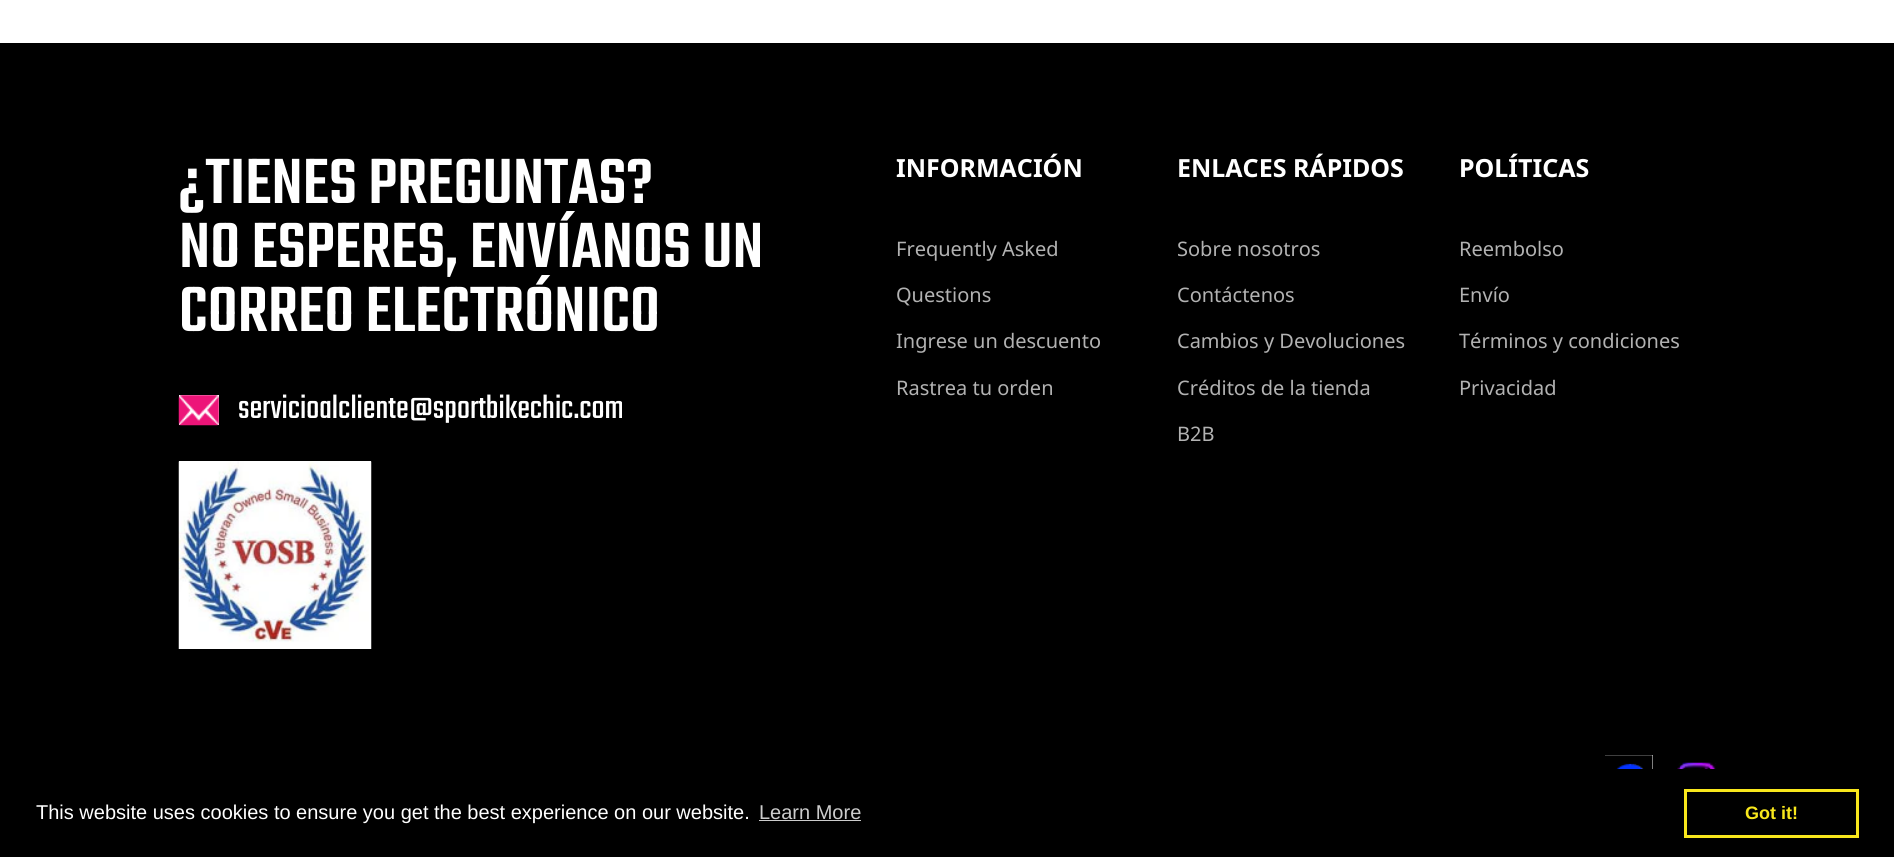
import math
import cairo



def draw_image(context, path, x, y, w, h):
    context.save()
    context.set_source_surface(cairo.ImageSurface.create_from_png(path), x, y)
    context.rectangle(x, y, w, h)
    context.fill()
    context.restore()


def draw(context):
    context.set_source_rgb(1, 1, 1)
    context.paint()
    context.set_source_rgb(0, 0, 0)
    context.rectangle(0, 43, 1894, 814)
    context.fill()
    context.set_source_rgb(1, 1, 1)
    context.rectangle(179, 395, 40, 30)
    context.fill()
    draw_image(context, "images/1.png", 178, 395, 41, 31)
    context.rectangle(179, 461, 192, 1)
    context.fill()
    draw_image(context, "images/2.png", 178, 461, 194, 188)
    context.rectangle(1605, 755, 48, 14)
    context.fill()
    draw_image(context, "images/3.png", 1605, 755, 48, 14)
    draw_image(context, "images/4.png", 1677, 762, 40, 7)
    context.set_source_rgb(204 / 255, 204 / 255, 204 / 255)
    context.rectangle(759, 820, 102, 1)
    context.fill()
    context.rectangle(1685.5, 790.5, 172, 46)
    context.set_source_rgb(248 / 255, 231 / 255, 28 / 255)
    context.set_line_width(3)
    context.stroke()
    context.select_font_face("Teko Medium")
    context.set_font_size(70)
    context.set_source_rgb(1, 1, 1)
    context.move_to(179, 203)
    context.show_text("¿TIENES PREGUNTAS?")
    context.move_to(179, 267)
    context.show_text("NO ESPERES, ENVÍANOS UN")
    context.move_to(179, 331)
    context.show_text("CORREO ELECTRÓNICO")
    context.select_font_face("Teko")
    context.set_font_size(35)
    context.move_to(238, 418)
    context.show_text("servicioalcliente@sportbikechic.com")
    context.select_font_face("Noto Sans", cairo.FontSlant.NORMAL, cairo.FontWeight.BOLD)
    context.set_font_size(25)
    context.move_to(896, 177)
    context.show_text("INFORMACIÓN")
    context.select_font_face("Noto Sans")
    context.set_font_size(20)
    context.set_source_rgb(178 / 255, 178 / 255, 178 / 255)
    context.move_to(896, 256)
    context.show_text("Frequently Asked")
    context.move_to(896, 302)
    context.show_text("Questions")
    context.move_to(896, 348)
    context.show_text("Ingrese un descuento")
    context.move_to(896, 395)
    context.show_text("Rastrea tu orden")
    context.select_font_face("Noto Sans", cairo.FontSlant.NORMAL, cairo.FontWeight.BOLD)
    context.set_font_size(25)
    context.set_source_rgb(1, 1, 1)
    context.move_to(1177, 177)
    context.show_text("ENLACES RÁPIDOS")
    context.select_font_face("Noto Sans")
    context.set_font_size(20)
    context.set_source_rgb(178 / 255, 178 / 255, 178 / 255)
    context.move_to(1177, 256)
    context.show_text("Sobre nosotros")
    context.move_to(1177, 302)
    context.show_text("Contáctenos")
    context.move_to(1177, 348)
    context.show_text("Cambios y Devoluciones")
    context.move_to(1177, 395)
    context.show_text("Créditos de la tienda")
    context.move_to(1177, 441)
    context.show_text("B2B")
    context.select_font_face("Noto Sans", cairo.FontSlant.NORMAL, cairo.FontWeight.BOLD)
    context.set_font_size(25)
    context.set_source_rgb(1, 1, 1)
    context.move_to(1459, 177)
    context.show_text("POLÍTICAS")
    context.select_font_face("Noto Sans")
    context.set_font_size(20)
    context.set_source_rgb(178 / 255, 178 / 255, 178 / 255)
    context.move_to(1459, 256)
    context.show_text("Reembolso")
    context.move_to(1459, 302)
    context.show_text("Envío")
    context.move_to(1459, 348)
    context.show_text("Términos y condiciones")
    context.move_to(1459, 395)
    context.show_text("Privacidad")
    context.select_font_face("Liberation Sans")
    context.set_source_rgb(1, 1, 1)
    context.move_to(36, 819)
    context.show_text("This website uses cookies to ensure you get the best experience on our website.")
    context.set_source_rgb(204 / 255, 204 / 255, 204 / 255)
    context.move_to(759, 819)
    context.show_text("Learn More")
    context.select_font_face("Liberation Sans", cairo.FontSlant.NORMAL, cairo.FontWeight.BOLD)
    context.set_font_size(18)
    context.set_source_rgb(248 / 255, 231 / 255, 28 / 255)
    context.move_to(1745, 819)
    context.show_text("Got it!")


surface = cairo.ImageSurface(cairo.Format.RGB24, 1894, 857)
context = cairo.Context(surface)
options = cairo.FontOptions()
options.set_hint_metrics(cairo.HintMetrics.OFF)
options.set_hint_style(cairo.HintStyle.NONE)
context.set_font_options(options)
context.set_miter_limit(4)
draw(context)
surface.write_to_png("out.png")
